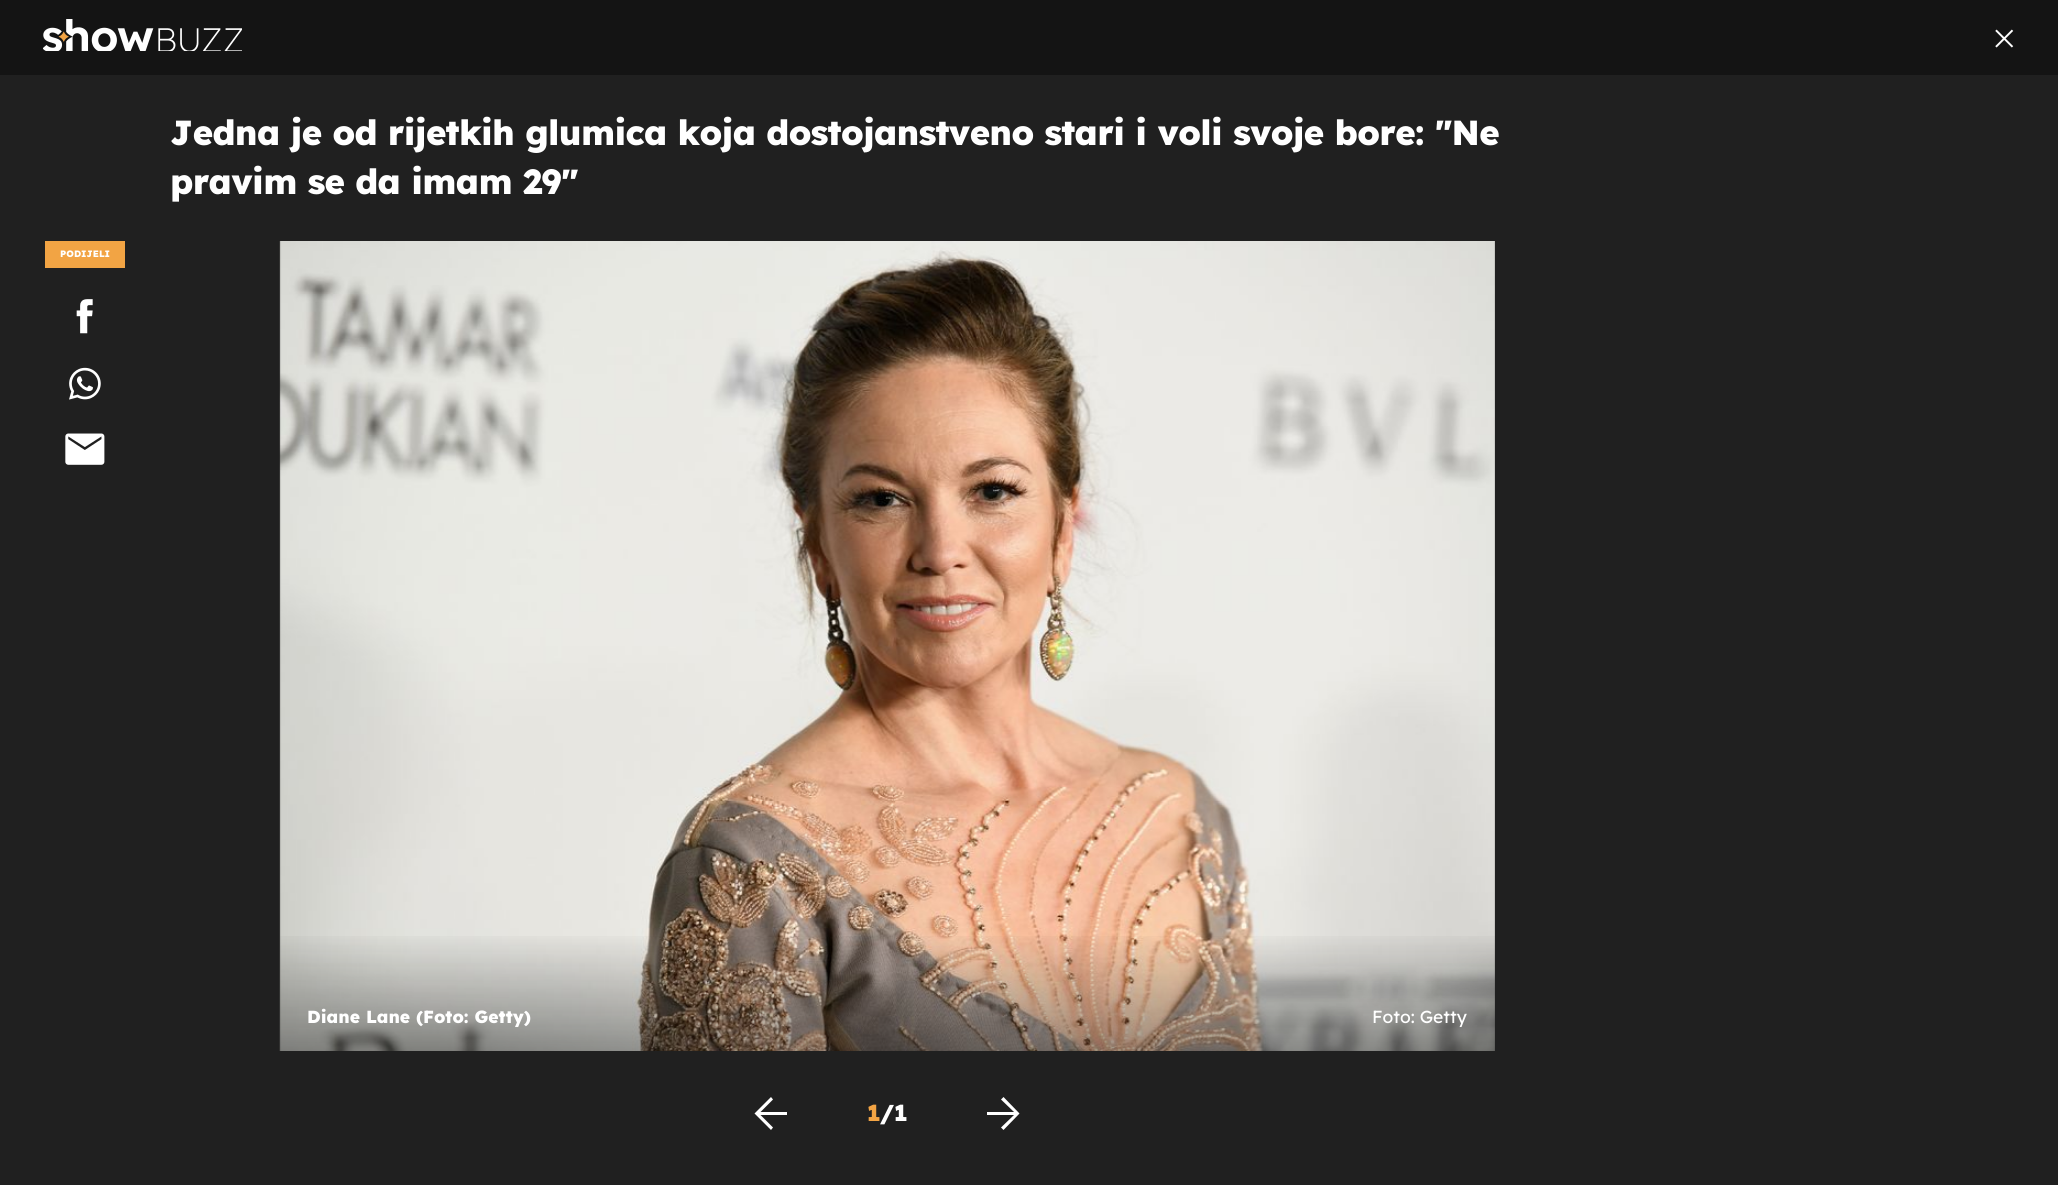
import math
import cairo



def draw_spaced(context, x, y, s, letter, word):
    context.move_to(x, y)
    for ch in s:
        context.show_text(ch)
        context.rel_move_to(letter + word * (ch == ' '), 0)


def draw_image(context, path, x, y, w, h):
    context.save()
    context.set_source_surface(cairo.ImageSurface.create_from_png(path), x, y)
    context.rectangle(x, y, w, h)
    context.fill()
    context.restore()


def draw(context):
    context.set_source_rgb(32 / 255, 32 / 255, 32 / 255)
    context.paint()
    context.set_source_rgb(20 / 255, 20 / 255, 20 / 255)
    context.rectangle(0, 0, 2058, 75)
    context.fill()
    draw_image(context, "images/1.png", 43, 19, 199, 32)
    draw_image(context, "images/2.png", 1995, 29, 19, 19)
    context.set_source_rgb(242 / 255, 164 / 255, 68 / 255)
    context.rectangle(45, 241, 80, 27)
    context.fill()
    draw_image(context, "images/3.png", 76, 299, 17, 35)
    draw_image(context, "images/4.png", 69, 367, 32, 33)
    draw_image(context, "images/5.png", 65, 433, 40, 32)
    draw_image(context, "images/6.png", 279, 241, 1216, 810)
    gradient = cairo.LinearGradient(888, 1051, 888, 929)
    gradient.add_color_stop_rgba(0, 20 / 255, 20 / 255, 20 / 255, 0.4)
    gradient.add_color_stop_rgba(1, 20 / 255, 20 / 255, 20 / 255, 0)
    context.set_source(gradient)
    context.rectangle(280, 936, 1215, 115)
    context.fill()
    context.set_source_rgb(1, 1, 1)
    context.new_path()
    context.move_to(771, 1130)
    context.line_to(773, 1127.5)
    context.line_to(760.5, 1115)
    context.line_to(787, 1115)
    context.line_to(787, 1112)
    context.line_to(760.5, 1112)
    context.line_to(773, 1099.5)
    context.line_to(771, 1097)
    context.line_to(754.5, 1113.5)
    context.close_path()
    context.fill()
    context.new_path()
    context.move_to(1003.5, 1130)
    context.line_to(1001, 1127.5)
    context.line_to(1014, 1115)
    context.line_to(987, 1115)
    context.line_to(987, 1112)
    context.line_to(1014, 1112)
    context.line_to(1001, 1099.5)
    context.line_to(1003.5, 1097)
    context.line_to(1019.5, 1113.5)
    context.close_path()
    context.fill()
    context.select_font_face("Lexend ExtraBold")
    context.set_font_size(34.8)
    draw_spaced(context, 170, 145, "Jedna je od rijetkih glumica koja dostojanstveno stari i voli svoje bore: \"Ne", -0.7, 0)
    draw_spaced(context, 170, 194, "pravim se da imam 29\"", -0.7, 0)
    context.set_font_size(9.25)
    context.move_to(60, 257)
    context.show_text("PODIJELI")
    context.set_font_size(17.5)
    context.move_to(307, 1023)
    context.show_text("Diane Lane (Foto: Getty)")
    context.select_font_face("Lexend")
    context.move_to(1372, 1023)
    context.show_text("Foto: Getty")
    context.select_font_face("Lexend ExtraBold")
    context.set_font_size(23)
    context.set_source_rgb(242 / 255, 164 / 255, 68 / 255)
    context.move_to(867, 1121)
    context.show_text("1")
    context.set_source_rgb(1, 1, 1)
    context.move_to(880, 1121)
    context.show_text("/1")


surface = cairo.ImageSurface(cairo.Format.RGB24, 2058, 1185)
context = cairo.Context(surface)
options = cairo.FontOptions()
options.set_hint_metrics(cairo.HintMetrics.OFF)
options.set_hint_style(cairo.HintStyle.NONE)
context.set_font_options(options)
context.set_miter_limit(4)
draw(context)
surface.write_to_png("out.png")
